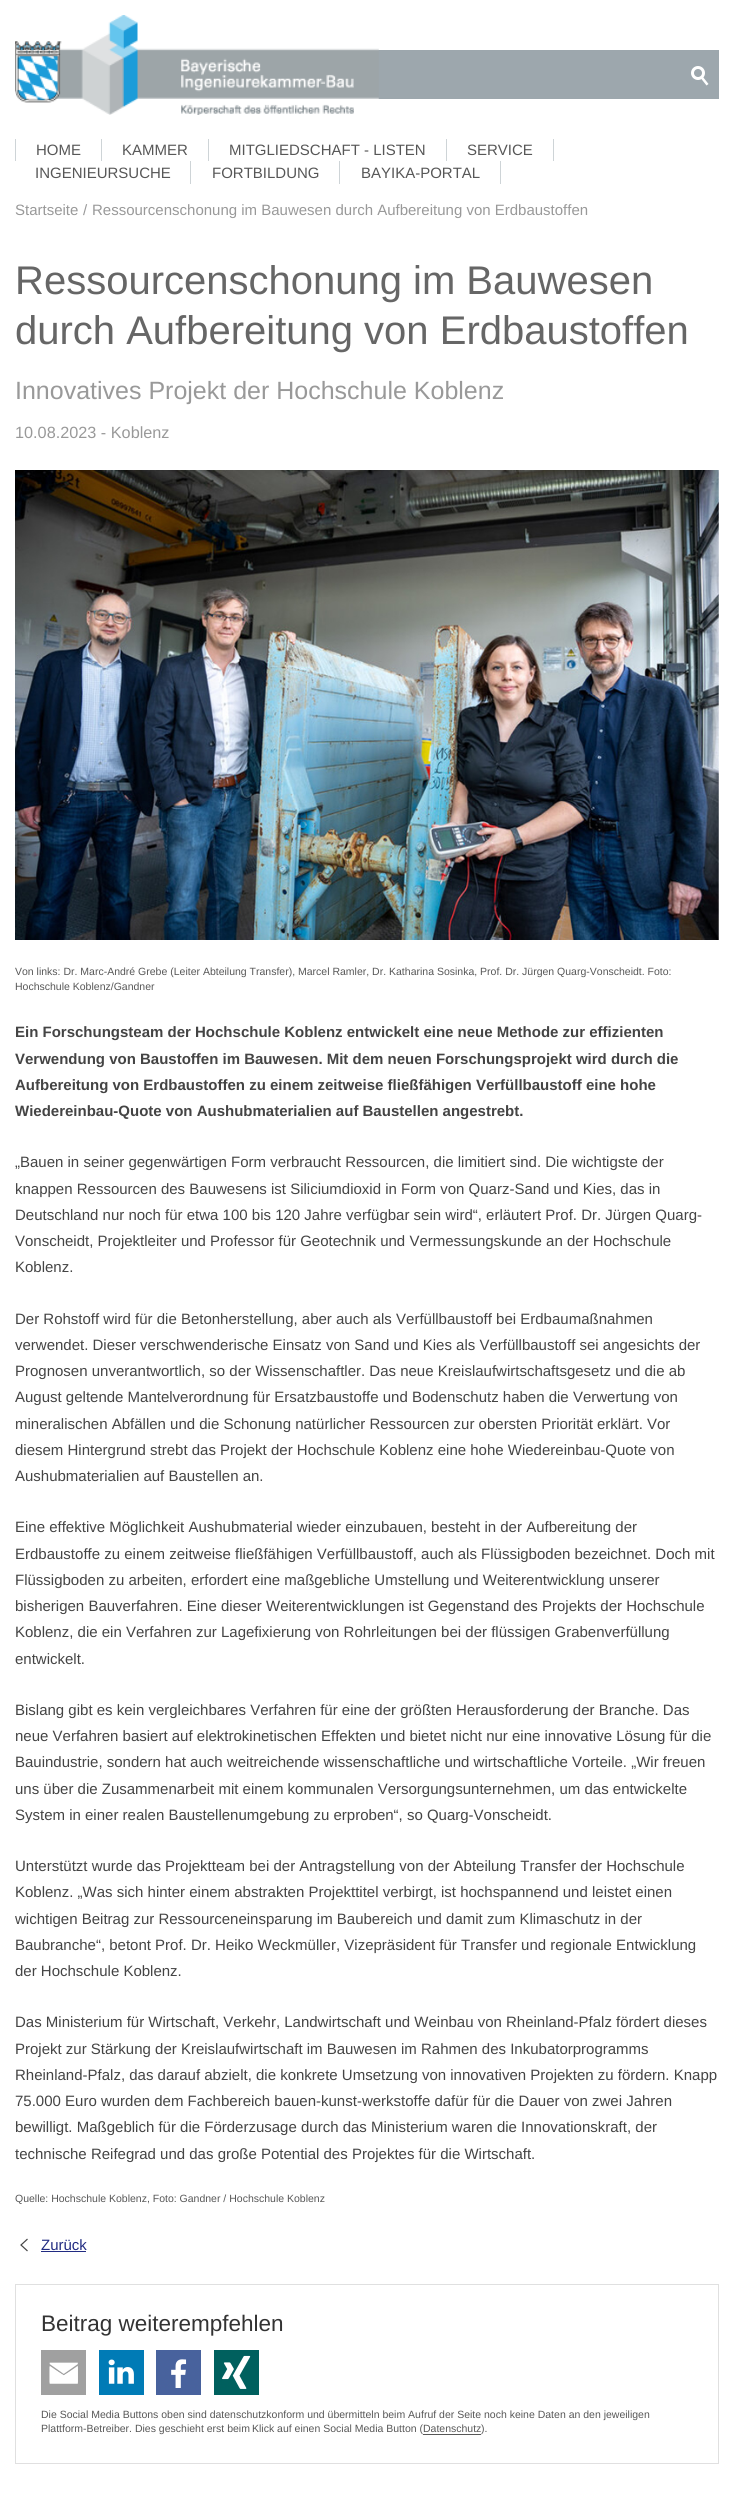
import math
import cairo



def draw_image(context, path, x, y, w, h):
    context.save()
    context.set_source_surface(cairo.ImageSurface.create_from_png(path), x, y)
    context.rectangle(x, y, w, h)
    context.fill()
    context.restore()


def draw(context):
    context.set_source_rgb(1, 1, 1)
    context.paint()
    context.set_source_rgb(157 / 255, 167 / 255, 173 / 255)
    context.rectangle(378, 50, 341, 49)
    context.fill()
    draw_image(context, "images/1.png", 15, 15, 364, 100)
    context.arc(698, 73, 5.5, 0, 2 * math.pi)
    context.set_source_rgb(1, 1, 1)
    context.set_line_width(3)
    context.stroke()
    context.new_path()
    context.move_to(703, 77)
    context.line_to(708.5, 84)
    context.line_to(706.5, 85.5)
    context.line_to(701, 78.5)
    context.close_path()
    context.fill()
    context.set_source_rgb(206 / 255, 212 / 255, 215 / 255)
    context.rectangle(101, 139, 1, 22)
    context.fill()
    context.rectangle(15, 139, 1, 22)
    context.fill()
    context.rectangle(208, 139, 1, 22)
    context.fill()
    context.rectangle(446, 139, 1, 22)
    context.fill()
    context.rectangle(553, 139, 1, 22)
    context.fill()
    context.rectangle(190, 161, 1, 23)
    context.fill()
    context.rectangle(339, 161, 1, 23)
    context.fill()
    context.rectangle(500, 161, 1, 23)
    context.fill()
    draw_image(context, "images/2.png", 15, 470, 704, 470)
    context.new_path()
    context.move_to(27.5, 2239)
    context.line_to(21, 2245)
    context.line_to(27.5, 2251)
    context.set_source_rgb(68 / 255, 68 / 255, 68 / 255)
    context.set_line_width(1.2)
    context.stroke()
    context.set_source_rgb(33 / 255, 43 / 255, 130 / 255)
    context.rectangle(41, 2251, 45, 1)
    context.fill()
    context.rectangle(15.5, 2284.5, 703, 179)
    context.set_source_rgb(224 / 255, 224 / 255, 224 / 255)
    context.set_line_width(1)
    context.stroke()
    context.set_source_rgb(160 / 255, 160 / 255, 160 / 255)
    context.rectangle(41, 2350, 45, 45)
    context.fill()
    draw_image(context, "images/3.png", 49, 2362, 29, 22)
    context.set_source_rgb(0, 123 / 255, 182 / 255)
    context.rectangle(99, 2350, 45, 45)
    context.fill()
    draw_image(context, "images/4.png", 108, 2359, 26, 25)
    context.set_source_rgb(72 / 255, 98 / 255, 157 / 255)
    context.rectangle(156, 2350, 45, 45)
    context.fill()
    draw_image(context, "images/5.png", 171, 2359, 16, 29)
    context.set_source_rgb(0, 96 / 255, 94 / 255)
    context.rectangle(214, 2350, 45, 45)
    context.fill()
    draw_image(context, "images/6.png", 222, 2355, 29, 34)
    context.set_source_rgb(87 / 255, 87 / 255, 87 / 255)
    context.rectangle(423, 2434, 58, 1)
    context.fill()
    context.select_font_face("Liberation Sans")
    context.set_font_size(15)
    context.move_to(36, 155)
    context.show_text("HOME")
    context.move_to(122, 155)
    context.show_text("KAMMER")
    context.move_to(229, 155)
    context.show_text("MITGLIEDSCHAFT - LISTEN")
    context.move_to(467, 155)
    context.show_text("SERVICE")
    context.move_to(35, 178)
    context.show_text("INGENIEURSUCHE")
    context.move_to(212, 178)
    context.show_text("FORTBILDUNG")
    context.move_to(361, 178)
    context.show_text("BAYIKA-PORTAL")
    context.set_source_rgb(153 / 255, 153 / 255, 153 / 255)
    context.move_to(15, 215)
    context.show_text("Startseite")
    context.move_to(83, 215)
    context.show_text("/")
    context.move_to(92, 215)
    context.show_text("Ressourcenschonung im Bauwesen durch Aufbereitung von Erdbaustoffen")
    context.set_font_size(40)
    context.set_source_rgb(102 / 255, 102 / 255, 102 / 255)
    context.move_to(15, 294)
    context.show_text("Ressourcenschonung im Bauwesen")
    context.move_to(15, 344)
    context.show_text("durch Aufbereitung von Erdbaustoffen")
    context.set_font_size(25)
    context.set_source_rgb(153 / 255, 153 / 255, 153 / 255)
    context.move_to(15, 399)
    context.show_text("Innovatives Projekt der Hochschule Koblenz")
    context.set_font_size(16.25)
    context.move_to(15, 438)
    context.show_text("10.08.2023 - Koblenz")
    context.set_font_size(10.5)
    context.set_source_rgb(87 / 255, 87 / 255, 87 / 255)
    context.move_to(15, 975)
    context.show_text("Von links: Dr. Marc-André Grebe (Leiter Abteilung Transfer), Marcel Ramler, Dr. Katharina Sosinka, Prof. Dr. Jürgen Quarg-Vonscheidt. Foto:")
    context.move_to(15, 990)
    context.show_text("Hochschule Koblenz/Gandner")
    context.select_font_face("Liberation Sans", cairo.FontSlant.NORMAL, cairo.FontWeight.BOLD)
    context.set_font_size(15)
    context.set_source_rgb(68 / 255, 68 / 255, 68 / 255)
    context.move_to(15, 1037)
    context.show_text("Ein Forschungsteam der Hochschule Koblenz entwickelt eine neue Methode zur effizienten")
    context.move_to(15, 1064)
    context.show_text("Verwendung von Baustoffen im Bauwesen. Mit dem neuen Forschungsprojekt wird durch die")
    context.move_to(15, 1090)
    context.show_text("Aufbereitung von Erdbaustoffen zu einem zeitweise fließfähigen Verfüllbaustoff eine hohe")
    context.move_to(15, 1116)
    context.show_text("Wiedereinbau-Quote von Aushubmaterialien auf Baustellen angestrebt.")
    context.select_font_face("Liberation Sans")
    context.move_to(15, 1167)
    context.show_text("„Bauen in seiner gegenwärtigen Form verbraucht Ressourcen, die limitiert sind. Die wichtigste der")
    context.move_to(15, 1194)
    context.show_text("knappen Ressourcen des Bauwesens ist Siliciumdioxid in Form von Quarz-Sand und Kies, das in")
    context.move_to(15, 1220)
    context.show_text("Deutschland nur noch für etwa 100 bis 120 Jahre verfügbar sein wird“, erläutert Prof. Dr. Jürgen Quarg-")
    context.move_to(15, 1246)
    context.show_text("Vonscheidt, Projektleiter und Professor für Geotechnik und Vermessungskunde an der Hochschule")
    context.move_to(15, 1272)
    context.show_text("Koblenz.")
    context.move_to(15, 1324)
    context.show_text("Der Rohstoff wird für die Betonherstellung, aber auch als Verfüllbaustoff bei Erdbaumaßnahmen")
    context.move_to(15, 1350)
    context.show_text("verwendet. Dieser verschwenderische Einsatz von Sand und Kies als Verfüllbaustoff sei angesichts der")
    context.move_to(15, 1376)
    context.show_text("Prognosen unverantwortlich, so der Wissenschaftler. Das neue Kreislaufwirtschaftsgesetz und die ab")
    context.move_to(15, 1402)
    context.show_text("August geltende Mantelverordnung für Ersatzbaustoffe und Bodenschutz haben die Verwertung von")
    context.move_to(15, 1429)
    context.show_text("mineralischen Abfällen und die Schonung natürlicher Ressourcen zur obersten Priorität erklärt. Vor")
    context.move_to(15, 1455)
    context.show_text("diesem Hintergrund strebt das Projekt der Hochschule Koblenz eine hohe Wiedereinbau-Quote von")
    context.move_to(15, 1481)
    context.show_text("Aushubmaterialien auf Baustellen an.")
    context.move_to(15, 1532)
    context.show_text("Eine effektive Möglichkeit Aushubmaterial wieder einzubauen, besteht in der Aufbereitung der")
    context.move_to(15, 1559)
    context.show_text("Erdbaustoffe zu einem zeitweise fließfähigen Verfüllbaustoff, auch als Flüssigboden bezeichnet. Doch mit")
    context.move_to(15, 1585)
    context.show_text("Flüssigboden zu arbeiten, erfordert eine maßgebliche Umstellung und Weiterentwicklung unserer")
    context.move_to(15, 1611)
    context.show_text("bisherigen Bauverfahren. Eine dieser Weiterentwicklungen ist Gegenstand des Projekts der Hochschule")
    context.move_to(15, 1637)
    context.show_text("Koblenz, die ein Verfahren zur Lagefixierung von Rohrleitungen bei der flüssigen Grabenverfüllung")
    context.move_to(15, 1664)
    context.show_text("entwickelt.")
    context.move_to(15, 1715)
    context.show_text("Bislang gibt es kein vergleichbares Verfahren für eine der größten Herausforderung der Branche. Das")
    context.move_to(15, 1741)
    context.show_text("neue Verfahren basiert auf elektrokinetischen Effekten und bietet nicht nur eine innovative Lösung für die")
    context.move_to(15, 1767)
    context.show_text("Bauindustrie, sondern hat auch weitreichende wissenschaftliche und wirtschaftliche Vorteile. „Wir freuen")
    context.move_to(15, 1794)
    context.show_text("uns über die Zusammenarbeit mit einem kommunalen Versorgungsunternehmen, um das entwickelte")
    context.move_to(15, 1820)
    context.show_text("System in einer realen Baustellenumgebung zu erproben“, so Quarg-Vonscheidt.")
    context.move_to(15, 1871)
    context.show_text("Unterstützt wurde das Projektteam bei der Antragstellung von der Abteilung Transfer der Hochschule")
    context.move_to(15, 1897)
    context.show_text("Koblenz. „Was sich hinter einem abstrakten Projekttitel verbirgt, ist hochspannend und leistet einen")
    context.move_to(15, 1924)
    context.show_text("wichtigen Beitrag zur Ressourceneinsparung im Baubereich und damit zum Klimaschutz in der")
    context.move_to(15, 1950)
    context.show_text("Baubranche“, betont Prof. Dr. Heiko Weckmüller, Vizepräsident für Transfer und regionale Entwicklung")
    context.move_to(15, 1976)
    context.show_text("der Hochschule Koblenz.")
    context.move_to(15, 2027)
    context.show_text("Das Ministerium für Wirtschaft, Verkehr, Landwirtschaft und Weinbau von Rheinland-Pfalz fördert dieses")
    context.move_to(15, 2054)
    context.show_text("Projekt zur Stärkung der Kreislaufwirtschaft im Bauwesen im Rahmen des Inkubatorprogramms")
    context.move_to(15, 2080)
    context.show_text("Rheinland-Pfalz, das darauf abzielt, die konkrete Umsetzung von innovativen Projekten zu fördern. Knapp")
    context.move_to(15, 2106)
    context.show_text("75.000 Euro wurden dem Fachbereich bauen-kunst-werkstoffe dafür für die Dauer von zwei Jahren")
    context.move_to(15, 2132)
    context.show_text("bewilligt. Maßgeblich für die Förderzusage durch das Ministerium waren die Innovationskraft, der")
    context.move_to(15, 2159)
    context.show_text("technische Reifegrad und das große Potential des Projektes für die Wirtschaft.")
    context.set_font_size(10.5)
    context.set_source_rgb(87 / 255, 87 / 255, 87 / 255)
    context.move_to(15, 2202)
    context.show_text("Quelle: Hochschule Koblenz, Foto: Gandner / Hochschule Koblenz")
    context.set_font_size(15)
    context.set_source_rgb(33 / 255, 43 / 255, 130 / 255)
    context.move_to(41, 2250)
    context.show_text("Zurück")
    context.set_font_size(22.5)
    context.set_source_rgb(51 / 255, 51 / 255, 51 / 255)
    context.move_to(41, 2331)
    context.show_text("Beitrag weiterempfehlen")
    context.set_font_size(10.5)
    context.set_source_rgb(87 / 255, 87 / 255, 87 / 255)
    context.move_to(41, 2418)
    context.show_text("Die Social Media Buttons oben sind datenschutzkonform und übermitteln beim Aufruf der Seite noch keine Daten an den jeweiligen")
    context.move_to(41, 2432)
    context.show_text("Plattform-Betreiber. Dies geschieht erst beim")
    context.move_to(252, 2432)
    context.show_text("Klick auf einen Social Media Button (Datenschutz")
    context.move_to(481, 2432)
    context.show_text(").")


surface = cairo.ImageSurface(cairo.Format.RGB24, 733, 2494)
context = cairo.Context(surface)
options = cairo.FontOptions()
options.set_hint_metrics(cairo.HintMetrics.OFF)
options.set_hint_style(cairo.HintStyle.NONE)
context.set_font_options(options)
context.set_miter_limit(4)
draw(context)
surface.write_to_png("out.png")
